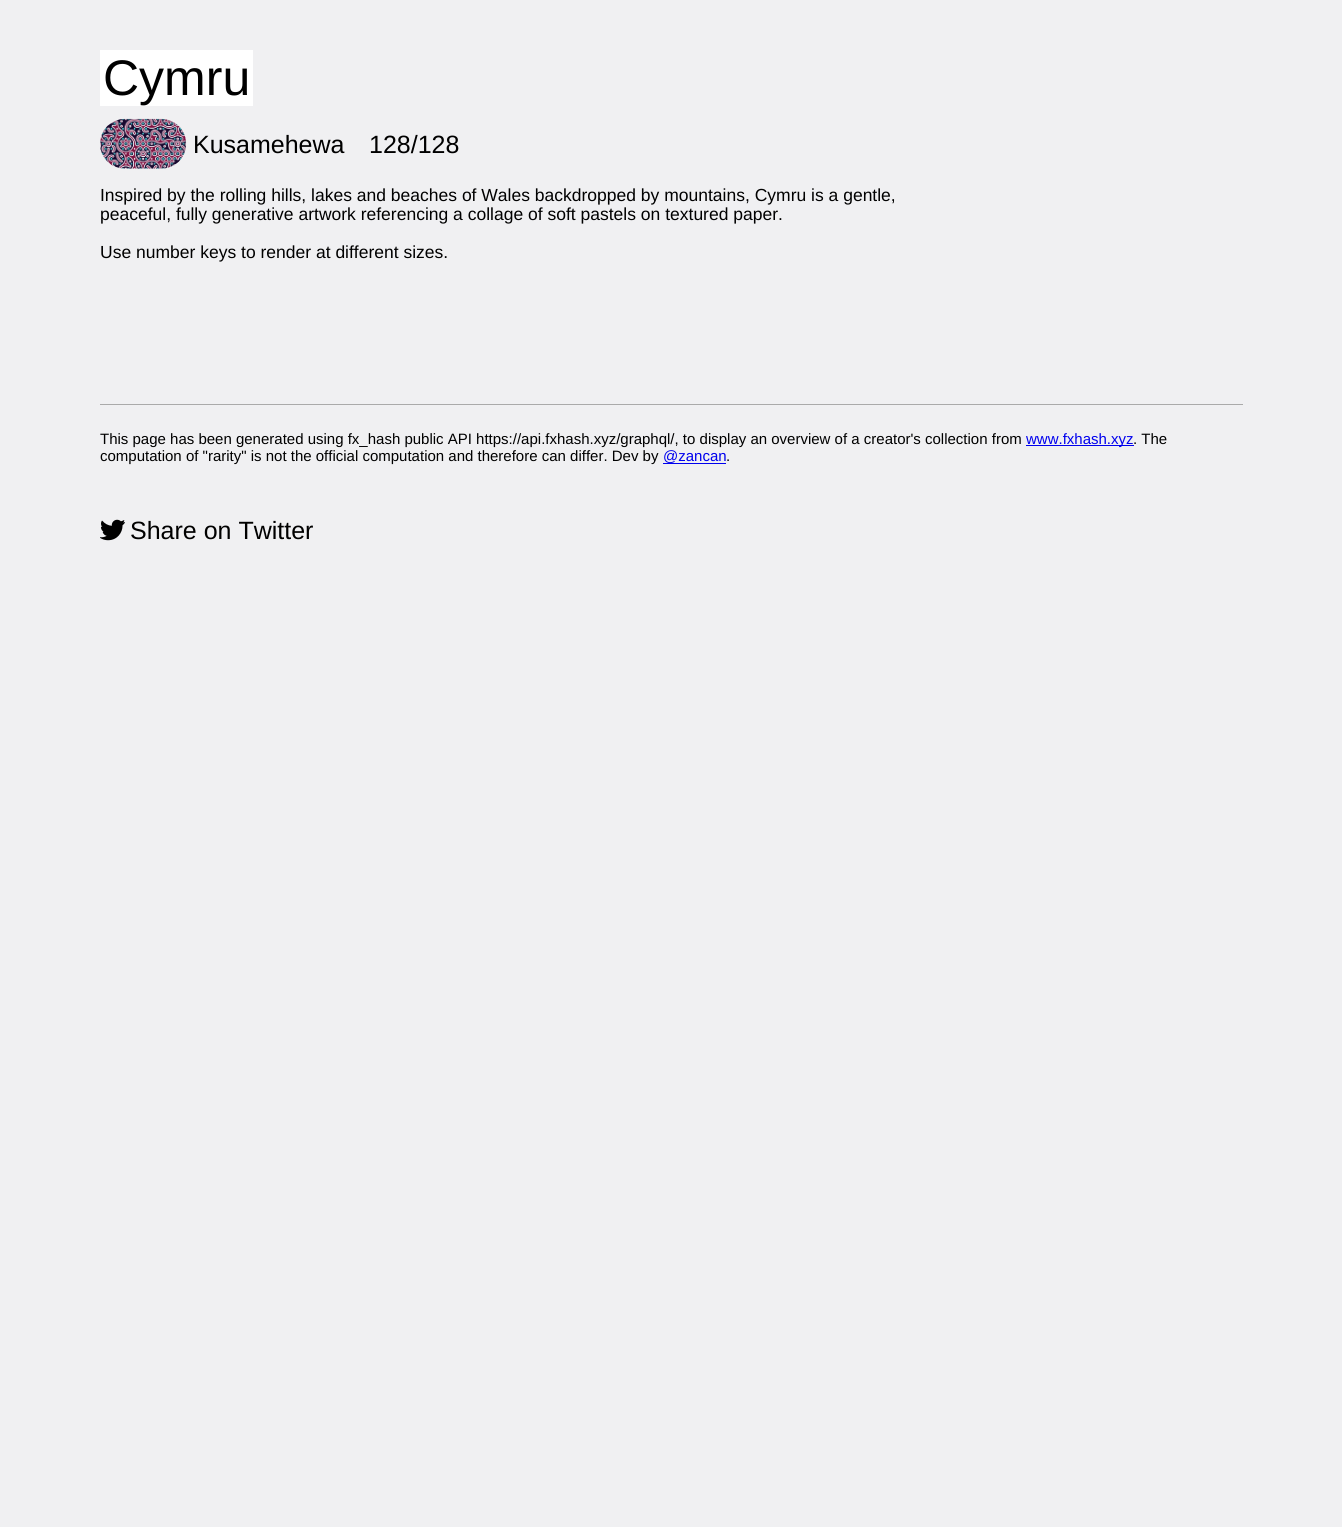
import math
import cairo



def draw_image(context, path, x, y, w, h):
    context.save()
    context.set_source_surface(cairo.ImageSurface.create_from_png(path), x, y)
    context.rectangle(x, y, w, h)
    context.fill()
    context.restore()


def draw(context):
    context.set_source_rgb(240 / 255, 240 / 255, 242 / 255)
    context.paint()
    context.set_source_rgb(1, 1, 1)
    context.rectangle(100, 50, 153, 56)
    context.fill()
    draw_image(context, "images/1.png", 100, 118, 87, 51)
    context.set_source_rgb(170 / 255, 170 / 255, 170 / 255)
    context.rectangle(100, 404, 1143, 1)
    context.fill()
    context.set_source_rgb(0, 0, 238 / 255)
    context.rectangle(1026, 445, 108, 1)
    context.fill()
    context.rectangle(663, 463, 63, 1)
    context.fill()
    draw_image(context, "images/2.png", 100, 519, 25, 22)
    context.select_font_face("Liberation Sans")
    context.set_font_size(50)
    context.set_source_rgb(0, 0, 0)
    context.move_to(103, 95)
    context.show_text("Cymru")
    context.set_font_size(25)
    context.move_to(193, 153)
    context.show_text("Kusamehewa")
    context.move_to(369, 153)
    context.show_text("128/128")
    context.set_font_size(17.5)
    context.move_to(100, 201)
    context.show_text("Inspired by the rolling hills, lakes and beaches of Wales backdropped by mountains, Cymru is a gentle,")
    context.move_to(100, 220)
    context.show_text("peaceful, fully generative artwork referencing a collage of soft pastels on textured paper.")
    context.move_to(100, 258)
    context.show_text("Use number keys to render at different sizes.")
    context.set_font_size(15)
    context.move_to(100, 444)
    context.show_text("This page has been generated using fx_hash public API https://api.fxhash.xyz/graphql/, to display an overview of a creator's collection from")
    context.set_source_rgb(0, 0, 238 / 255)
    context.move_to(1026, 444)
    context.show_text("www.fxhash.xyz")
    context.set_source_rgb(0, 0, 0)
    context.move_to(1133, 444)
    context.show_text(". The")
    context.move_to(100, 461)
    context.show_text("computation of \"rarity\" is not the official computation and therefore can differ. Dev by")
    context.set_source_rgb(0, 0, 238 / 255)
    context.move_to(663, 461)
    context.show_text("@zancan")
    context.set_source_rgb(0, 0, 0)
    context.move_to(726, 461)
    context.show_text(".")
    context.set_font_size(25)
    context.move_to(130, 539)
    context.show_text("Share on Twitter")


surface = cairo.ImageSurface(cairo.Format.RGB24, 1342, 1527)
context = cairo.Context(surface)
options = cairo.FontOptions()
options.set_hint_metrics(cairo.HintMetrics.OFF)
options.set_hint_style(cairo.HintStyle.NONE)
context.set_font_options(options)
context.set_miter_limit(4)
draw(context)
surface.write_to_png("out.png")
